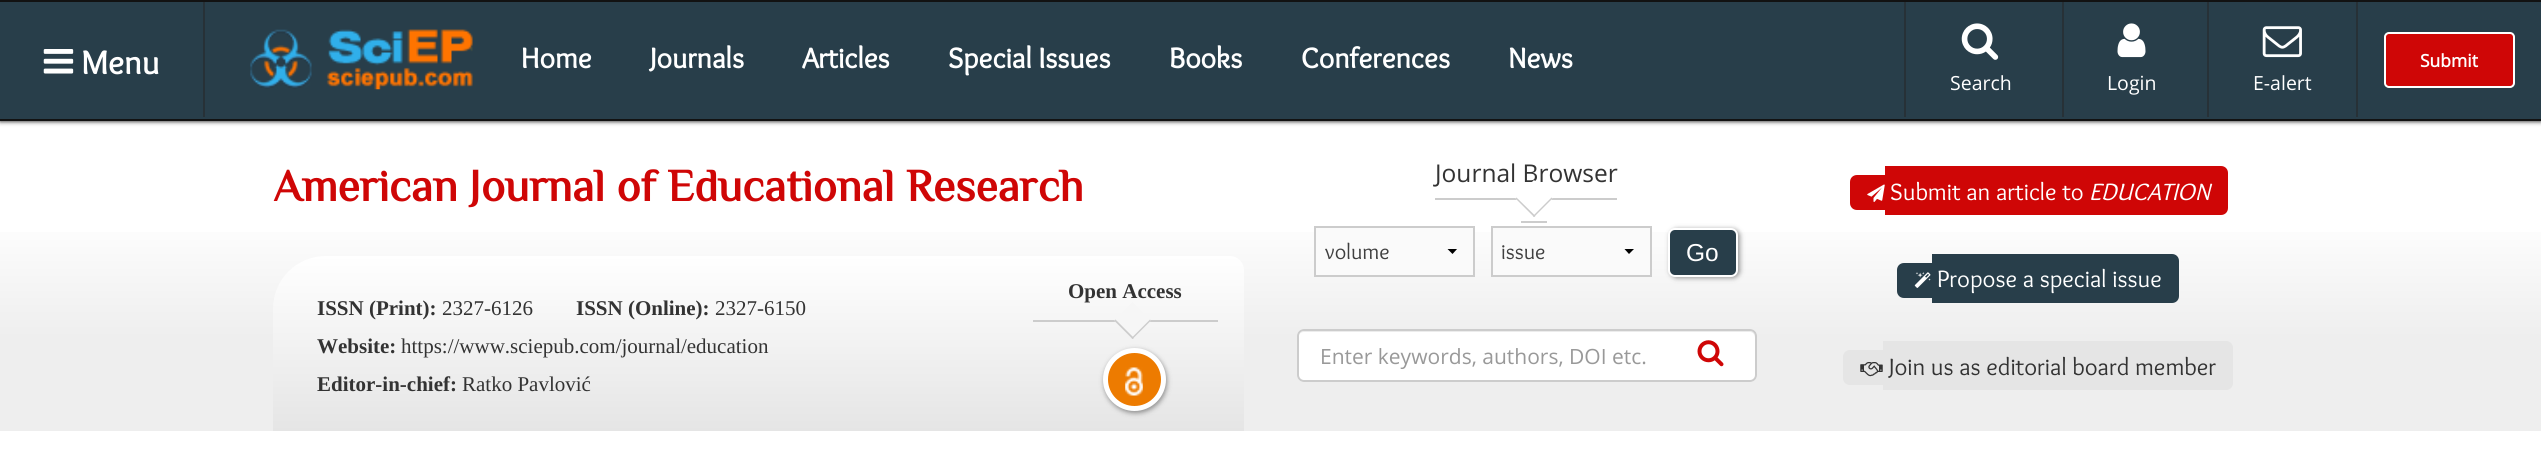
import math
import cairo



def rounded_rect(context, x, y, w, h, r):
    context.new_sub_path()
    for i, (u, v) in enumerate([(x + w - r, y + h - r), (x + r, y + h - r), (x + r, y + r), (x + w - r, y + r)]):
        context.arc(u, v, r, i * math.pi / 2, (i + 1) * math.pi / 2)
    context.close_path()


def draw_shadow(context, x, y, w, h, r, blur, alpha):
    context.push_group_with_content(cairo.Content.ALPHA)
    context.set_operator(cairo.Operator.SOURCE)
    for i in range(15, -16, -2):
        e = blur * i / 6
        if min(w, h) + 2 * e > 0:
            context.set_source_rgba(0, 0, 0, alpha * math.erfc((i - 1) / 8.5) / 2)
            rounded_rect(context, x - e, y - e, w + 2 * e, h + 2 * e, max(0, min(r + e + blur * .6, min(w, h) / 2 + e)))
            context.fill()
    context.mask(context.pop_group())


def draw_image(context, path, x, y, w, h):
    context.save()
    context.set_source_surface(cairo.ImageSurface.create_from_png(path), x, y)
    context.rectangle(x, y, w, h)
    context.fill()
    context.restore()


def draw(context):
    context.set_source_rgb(1, 1, 1)
    context.paint()
    context.set_source_rgb(0, 0, 0)
    draw_shadow(context, 0, 2, 2541, 119, 0, 2.5, 1)
    context.set_source_rgb(40 / 255, 62 / 255, 74 / 255)
    context.rectangle(0, 2, 2541, 117)
    context.fill()
    context.set_source_rgb(39 / 255, 49 / 255, 55 / 255)
    context.rectangle(203, 0, 2, 117)
    context.fill()
    context.rectangle(1904, 0, 2, 117)
    context.fill()
    context.rectangle(2062, 0, 2, 117)
    context.fill()
    context.rectangle(2356, 0, 2, 117)
    context.fill()
    context.rectangle(2207, 0, 2, 117)
    context.fill()
    context.set_source_rgb(18 / 255, 18 / 255, 18 / 255)
    context.rectangle(0, 0, 2541, 2)
    context.fill()
    draw_image(context, "images/1.png", 43, 49, 31, 25)
    draw_image(context, "images/2.png", 250, 29, 223, 61)
    context.set_source_rgb(207 / 255, 6 / 255, 6 / 255)
    rounded_rect(context, 2385, 33, 129, 54, 4)
    context.fill_preserve()
    context.set_source_rgb(1, 1, 1)
    context.stroke()
    draw_image(context, "images/3.png", 1961, 23, 38, 37)
    draw_image(context, "images/4.png", 2117, 23, 29, 35)
    draw_image(context, "images/5.png", 2262, 26, 40, 32)
    context.set_source_rgb(18 / 255, 18 / 255, 18 / 255)
    context.rectangle(0, 119, 2541, 2)
    context.fill()
    gradient = cairo.LinearGradient(1271, 121, 1271, 431)
    gradient.add_color_stop_rgba(0, 1, 1, 1, 1)
    gradient.add_color_stop_rgba(0.3, 1, 1, 1, 1)
    gradient.add_color_stop_rgba(0.7, 238 / 255, 238 / 255, 238 / 255, 1)
    gradient.add_color_stop_rgba(1, 238 / 255, 238 / 255, 238 / 255, 1)
    context.set_source(gradient)
    context.rectangle(0, 232, 2541, 199)
    context.fill()
    gradient = cairo.LinearGradient(273, 256, 273, 431)
    gradient.add_color_stop_rgba(0, 1, 1, 1, 1)
    gradient.add_color_stop_rgba(1, 229 / 255, 229 / 255, 229 / 255, 1)
    context.set_source(gradient)
    context.new_path()
    context.move_to(326, 256)
    context.line_to(1230, 256)
    context.curve_to(1237.5, 256, 1244, 262.5, 1244, 270)
    context.line_to(1244, 431)
    context.line_to(273, 431)
    context.line_to(273, 309)
    context.curve_to(273, 279.5, 296.5, 256, 326, 256)
    context.close_path()
    context.fill()
    context.set_source_rgb(204 / 255, 204 / 255, 204 / 255)
    context.rectangle(1033, 320, 185, 2)
    context.fill()
    context.set_source_rgb(0, 0, 0)
    draw_shadow(context, 1104, 350, 63, 63, 31.5, 2.5, 0.4)
    context.set_source_rgb(237 / 255, 123 / 255, 0)
    context.arc(1134.5, 379.5, 29, 0, 2 * math.pi)
    context.fill_preserve()
    context.set_source_rgb(1, 1, 1)
    context.set_line_width(5)
    context.stroke()
    draw_image(context, "images/6.png", 1125, 367, 18, 29)
    context.set_source_rgb(204 / 255, 204 / 255, 204 / 255)
    context.rectangle(1435, 198, 182, 2)
    context.fill()
    context.rectangle(1521, 221, 26, 2)
    context.fill()
    context.set_source_rgb(250 / 255, 250 / 255, 250 / 255)
    context.rectangle(1316, 228, 157, 47)
    context.fill()
    context.save()
    context.rectangle(1432, 249, 42, 5)
    context.clip()
    context.set_source_rgb(0, 0, 0)
    context.new_path()
    context.move_to(1457.5, 248.5)
    context.line_to(1452.5, 254)
    context.line_to(1447, 248.5)
    context.close_path()
    context.fill()
    context.restore()
    context.rectangle(1315, 227, 159, 49)
    context.set_source_rgb(204 / 255, 204 / 255, 204 / 255)
    context.set_line_width(2)
    context.stroke()
    context.set_source_rgb(250 / 255, 250 / 255, 250 / 255)
    context.rectangle(1493, 228, 157, 47)
    context.fill()
    context.save()
    context.rectangle(1608, 249, 42, 5)
    context.clip()
    context.set_source_rgb(0, 0, 0)
    context.new_path()
    context.move_to(1634.5, 248.5)
    context.line_to(1629, 254)
    context.line_to(1624, 248.5)
    context.close_path()
    context.fill()
    context.restore()
    context.rectangle(1492, 227, 159, 49)
    context.set_source_rgb(204 / 255, 204 / 255, 204 / 255)
    context.stroke()
    context.set_source_rgb(0, 0, 0)
    draw_shadow(context, 1670, 229, 70, 49, 7, 2.5, 0.4)
    context.set_source_rgb(40 / 255, 62 / 255, 74 / 255)
    rounded_rect(context, 1669, 229, 68, 47, 6)
    context.fill_preserve()
    context.set_source_rgb(1, 1, 1)
    context.stroke()
    rounded_rect(context, 1297, 329, 460, 53, 7)
    context.fill()
    context.set_source_rgb(236 / 255, 236 / 255, 236 / 255)
    context.new_path()
    context.move_to(1304, 332)
    context.curve_to(1302, 332, 1300, 333, 1299, 335)
    context.curve_to(1300, 333, 1302, 331, 1304, 331)
    context.line_to(1750, 331)
    context.curve_to(1753, 331, 1755, 333, 1755, 336)
    context.line_to(1755, 338)
    context.curve_to(1755, 335, 1753, 332, 1750, 332)
    context.close_path()
    context.fill()
    rounded_rect(context, 1298, 330, 458, 51, 6)
    context.set_source_rgb(204 / 255, 204 / 255, 204 / 255)
    context.stroke()
    draw_image(context, "images/7.png", 1697, 340, 27, 27)
    context.set_source_rgb(207 / 255, 6 / 255, 6 / 255)
    context.new_path()
    context.move_to(1857, 175)
    context.line_to(1885, 175)
    context.line_to(1885, 210)
    context.line_to(1857, 210)
    context.curve_to(1853, 210, 1850, 207, 1850, 203)
    context.line_to(1850, 182)
    context.curve_to(1850, 178, 1853, 175, 1857, 175)
    context.close_path()
    context.fill()
    context.rectangle(1885, 166, 205, 49)
    context.fill()
    context.new_path()
    context.move_to(2090, 166)
    context.line_to(2221, 166)
    context.curve_to(2225, 166, 2228, 169, 2228, 173)
    context.line_to(2228, 208)
    context.curve_to(2228, 212, 2225, 215, 2221, 215)
    context.line_to(2090, 215)
    context.close_path()
    context.fill()
    draw_image(context, "images/8.png", 1867, 184, 18, 18)
    context.set_source_rgb(40 / 255, 62 / 255, 74 / 255)
    context.new_path()
    context.move_to(1904, 263)
    context.line_to(1932, 263)
    context.line_to(1932, 298)
    context.line_to(1904, 298)
    context.curve_to(1900, 298, 1897, 295, 1897, 291)
    context.line_to(1897, 270)
    context.curve_to(1897, 266, 1900, 263, 1904, 263)
    context.close_path()
    context.fill()
    context.new_path()
    context.move_to(1932, 254)
    context.line_to(2172, 254)
    context.curve_to(2176, 254, 2179, 257, 2179, 261)
    context.line_to(2179, 296)
    context.curve_to(2179, 300, 2176, 303, 2172, 303)
    context.line_to(1932, 303)
    context.close_path()
    context.fill()
    draw_image(context, "images/9.png", 1914, 272, 17, 16)
    context.set_source_rgb(229 / 255, 229 / 255, 229 / 255)
    context.new_path()
    context.move_to(1850, 350)
    context.line_to(1883, 350)
    context.line_to(1883, 385)
    context.line_to(1850, 385)
    context.curve_to(1846, 385, 1843, 382, 1843, 378)
    context.line_to(1843, 357)
    context.curve_to(1843, 353, 1846, 350, 1850, 350)
    context.close_path()
    context.fill()
    context.new_path()
    context.move_to(1883, 341)
    context.line_to(2226, 341)
    context.curve_to(2230, 341, 2233, 344, 2233, 348)
    context.line_to(2233, 383)
    context.curve_to(2233, 387, 2230, 390, 2226, 390)
    context.line_to(1883, 390)
    context.close_path()
    context.fill()
    draw_image(context, "images/10.png", 1860, 362, 23, 15)
    context.select_font_face("Overlock", cairo.FontSlant.NORMAL, cairo.FontWeight.BOLD)
    context.set_font_size(34)
    context.set_source_rgb(1, 1, 1)
    context.move_to(81, 74)
    context.show_text("Menu")
    context.set_font_size(29.5)
    context.move_to(521, 68)
    context.show_text("Home")
    context.move_to(650, 68)
    context.show_text("Journals")
    context.move_to(802, 68)
    context.show_text("Articles")
    context.move_to(948, 68)
    context.show_text("Special Issues")
    context.move_to(1169, 68)
    context.show_text("Books")
    context.move_to(1301, 68)
    context.show_text("Conferences")
    context.move_to(1508, 68)
    context.show_text("News")
    context.select_font_face("Open Sans", cairo.FontSlant.NORMAL, cairo.FontWeight.BOLD)
    context.set_font_size(17.5)
    context.move_to(2420, 67)
    context.show_text("Submit")
    context.select_font_face("Open Sans")
    context.set_font_size(19.5)
    context.move_to(1950, 90)
    context.show_text("Search")
    context.move_to(2107, 90)
    context.show_text("Login")
    context.move_to(2253, 90)
    context.show_text("E-alert")
    context.select_font_face("Philosopher", cairo.FontSlant.NORMAL, cairo.FontWeight.BOLD)
    context.set_font_size(45.5)
    context.set_source_rgb(207 / 255, 6 / 255, 6 / 255)
    context.move_to(273, 201)
    context.show_text("American Journal of Educational Research")
    context.select_font_face("Liberation Serif", cairo.FontSlant.NORMAL, cairo.FontWeight.BOLD)
    context.set_font_size(21)
    context.set_source_rgb(51 / 255, 51 / 255, 51 / 255)
    context.move_to(1068, 298)
    context.show_text("Open Access")
    context.set_source_rgb(246 / 255, 246 / 255, 246 / 255)
    context.new_path()
    context.move_to(1132.5, 302)
    context.line_to(1151, 320.5)
    context.line_to(1132.5, 339)
    context.line_to(1114, 320.5)
    context.close_path()
    context.fill()
    context.set_source_rgb(204 / 255, 204 / 255, 204 / 255)
    context.new_path()
    context.move_to(1150, 319.5)
    context.line_to(1151, 320.5)
    context.line_to(1132.5, 339)
    context.line_to(1131.5, 338)
    context.close_path()
    context.fill()
    context.new_path()
    context.move_to(1115.5, 319.5)
    context.line_to(1134, 338)
    context.line_to(1132.5, 339)
    context.line_to(1114, 320.5)
    context.close_path()
    context.fill()
    context.set_source_rgb(51 / 255, 51 / 255, 51 / 255)
    context.move_to(317, 315)
    context.show_text("ISSN (Print):")
    context.select_font_face("Liberation Serif")
    context.move_to(442, 315)
    context.show_text("2327-6126")
    context.select_font_face("Liberation Serif", cairo.FontSlant.NORMAL, cairo.FontWeight.BOLD)
    context.move_to(576, 315)
    context.show_text("ISSN (Online):")
    context.select_font_face("Liberation Serif")
    context.move_to(715, 315)
    context.show_text("2327-6150")
    context.select_font_face("Liberation Serif", cairo.FontSlant.NORMAL, cairo.FontWeight.BOLD)
    context.move_to(317, 353)
    context.show_text("Website:")
    context.select_font_face("Liberation Serif")
    context.move_to(401, 353)
    context.show_text("https://www.sciepub.com/journal/education")
    context.select_font_face("Liberation Serif", cairo.FontSlant.NORMAL, cairo.FontWeight.BOLD)
    context.move_to(317, 391)
    context.show_text("Editor-in-chief:")
    context.select_font_face("Liberation Serif")
    context.move_to(462, 391)
    context.show_text("Ratko Pavlović")
    context.select_font_face("Open Sans")
    context.set_font_size(24.5)
    context.move_to(1435, 182)
    context.show_text("Journal Browser")
    context.set_source_rgb(1, 1, 1)
    context.new_path()
    context.move_to(1534, 180)
    context.line_to(1552.5, 198.5)
    context.line_to(1534, 217)
    context.line_to(1515.5, 198.5)
    context.close_path()
    context.fill()
    context.set_source_rgb(204 / 255, 204 / 255, 204 / 255)
    context.new_path()
    context.move_to(1551.5, 197.5)
    context.line_to(1552.5, 198.5)
    context.line_to(1534, 217)
    context.line_to(1533, 216)
    context.close_path()
    context.fill()
    context.new_path()
    context.move_to(1516.5, 197.5)
    context.line_to(1535.5, 216)
    context.line_to(1534, 217)
    context.line_to(1515.5, 198.5)
    context.close_path()
    context.fill()
    context.select_font_face("Overlock")
    context.set_font_size(22)
    context.set_source_rgb(63 / 255, 63 / 255, 63 / 255)
    context.move_to(1325, 259)
    context.show_text("volume")
    context.move_to(1501, 259)
    context.show_text("issue")
    context.select_font_face("Liberation Sans")
    context.set_font_size(24.5)
    context.set_source_rgb(1, 1, 1)
    context.move_to(1686, 261)
    context.show_text("Go")
    context.select_font_face("Open Sans")
    context.set_font_size(21)
    context.set_source_rgb(153 / 255, 153 / 255, 153 / 255)
    context.move_to(1320, 364)
    context.show_text("Enter keywords, authors, DOI etc.")
    context.select_font_face("Overlock")
    context.set_font_size(24.5)
    context.set_source_rgb(1, 1, 1)
    context.move_to(1890, 200)
    context.show_text("Submit an article to")
    context.select_font_face("Overlock", cairo.FontSlant.ITALIC)
    context.move_to(2089, 200)
    context.show_text("EDUCATION")
    context.select_font_face("Overlock")
    context.move_to(1937, 287)
    context.show_text("Propose a special issue")
    context.set_source_rgb(51 / 255, 51 / 255, 51 / 255)
    context.move_to(1889, 375)
    context.show_text("Join us as editorial board member")


surface = cairo.ImageSurface(cairo.Format.RGB24, 2541, 465)
context = cairo.Context(surface)
options = cairo.FontOptions()
options.set_hint_metrics(cairo.HintMetrics.OFF)
options.set_hint_style(cairo.HintStyle.NONE)
context.set_font_options(options)
context.set_miter_limit(4)
draw(context)
surface.write_to_png("out.png")
